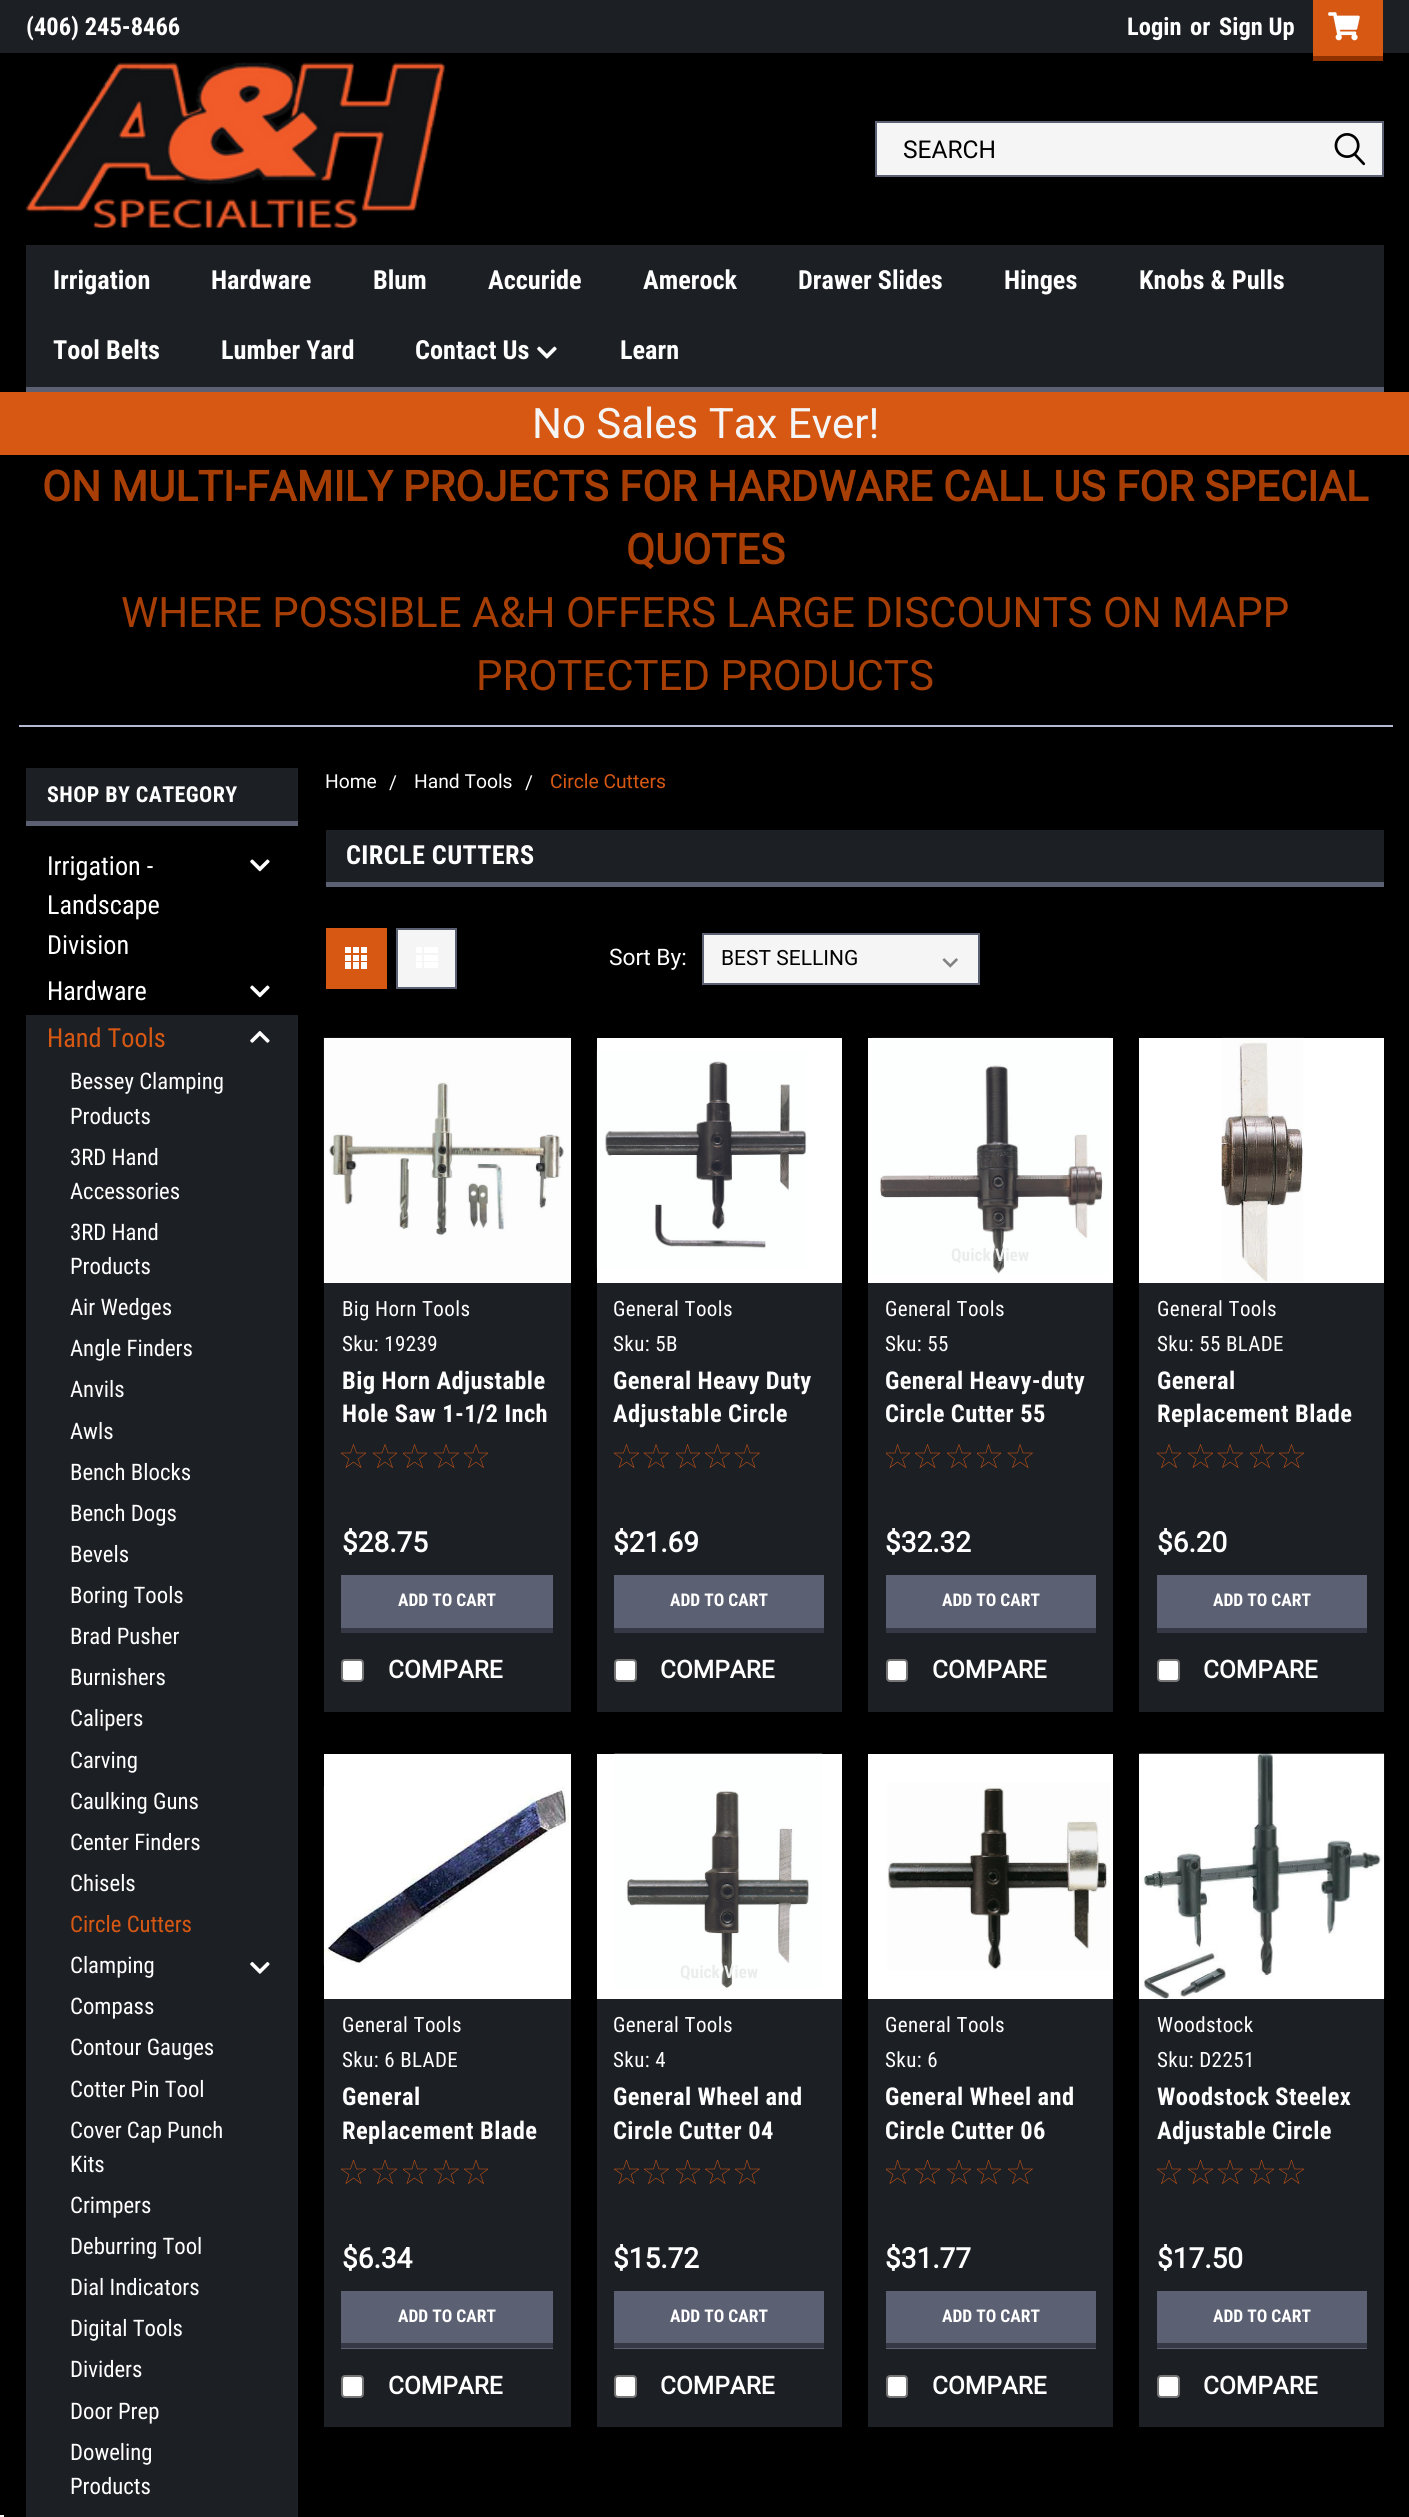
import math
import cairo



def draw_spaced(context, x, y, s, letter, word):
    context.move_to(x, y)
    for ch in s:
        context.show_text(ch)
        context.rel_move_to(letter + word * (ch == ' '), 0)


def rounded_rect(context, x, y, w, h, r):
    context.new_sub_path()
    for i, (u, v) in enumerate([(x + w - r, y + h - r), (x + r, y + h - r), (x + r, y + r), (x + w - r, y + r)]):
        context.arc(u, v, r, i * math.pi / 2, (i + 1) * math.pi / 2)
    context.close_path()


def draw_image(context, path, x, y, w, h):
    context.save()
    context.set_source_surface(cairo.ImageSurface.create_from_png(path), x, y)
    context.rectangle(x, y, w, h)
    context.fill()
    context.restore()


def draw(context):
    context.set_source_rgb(0, 0, 0)
    context.paint()
    context.set_source_rgb(28 / 255, 31 / 255, 36 / 255)
    context.rectangle(0, 0, 1409, 53)
    context.fill()
    context.set_source_rgb(215 / 255, 88 / 255, 19 / 255)
    context.rectangle(1313, 0, 70, 56)
    context.fill()
    context.set_source_rgb(143 / 255, 50 / 255, 0)
    context.rectangle(1313, 56, 70, 5)
    context.fill()
    draw_image(context, "images/1.png", 1328, 12, 32, 29)
    draw_image(context, "images/2.png", 26, 62, 419, 168)
    context.set_source_rgb(245 / 255, 245 / 255, 245 / 255)
    context.rectangle(876, 122, 507, 54)
    context.fill_preserve()
    context.set_source_rgb(91 / 255, 96 / 255, 115 / 255)
    context.stroke()
    draw_image(context, "images/3.png", 1334, 133, 32, 33)
    context.set_source_rgb(28 / 255, 31 / 255, 36 / 255)
    context.rectangle(26, 245, 1358, 142)
    context.fill()
    context.set_source_rgb(91 / 255, 96 / 255, 115 / 255)
    context.rectangle(26, 387, 1358, 5)
    context.fill()
    draw_image(context, "images/4.png", 537, 346, 20, 13)
    context.set_source_rgb(215 / 255, 88 / 255, 19 / 255)
    context.rectangle(0, 392, 1409, 63)
    context.fill()
    context.set_source_rgb(180 / 255, 186 / 255, 209 / 255)
    context.rectangle(19, 725, 1374, 2)
    context.fill()
    context.set_source_rgb(28 / 255, 31 / 255, 36 / 255)
    context.rectangle(26, 768, 272, 53)
    context.fill()
    context.set_source_rgb(91 / 255, 96 / 255, 115 / 255)
    context.rectangle(26, 821, 272, 5)
    context.fill()
    draw_image(context, "images/5.png", 250, 859, 20, 13)
    draw_image(context, "images/5.png", 250, 985, 20, 13)
    context.set_source_rgb(28 / 255, 31 / 255, 36 / 255)
    context.rectangle(26, 1015, 272, 1502)
    context.fill()
    draw_image(context, "images/6.png", 250, 1031, 20, 12)
    draw_image(context, "images/7.png", 250, 1962, 20, 12)
    context.rectangle(326, 830, 1058, 52)
    context.fill()
    context.set_source_rgb(91 / 255, 96 / 255, 115 / 255)
    context.rectangle(326, 882, 1058, 5)
    context.fill()
    context.set_source_rgb(215 / 255, 88 / 255, 19 / 255)
    context.rectangle(326, 928, 61, 61)
    context.fill()
    draw_image(context, "images/8.png", 345, 947, 22, 22)
    context.set_source_rgb(245 / 255, 245 / 255, 245 / 255)
    context.rectangle(397, 929, 59, 59)
    context.fill_preserve()
    context.set_source_rgb(91 / 255, 96 / 255, 115 / 255)
    context.stroke()
    draw_image(context, "images/9.png", 416, 947, 22, 21)
    context.set_source_rgb(245 / 255, 245 / 255, 245 / 255)
    context.rectangle(704, 935, 274, 48)
    context.fill()
    draw_image(context, "images/10.png", 942, 958, 16, 10)
    context.rectangle(703, 934, 276, 50)
    context.set_source_rgb(91 / 255, 96 / 255, 115 / 255)
    context.stroke()
    context.set_source_rgb(28 / 255, 31 / 255, 36 / 255)
    context.rectangle(324, 1283, 247, 429)
    context.fill()
    context.set_source_rgb(1, 1, 1)
    context.rectangle(324, 1038, 247, 245)
    context.fill()
    draw_image(context, "images/11.png", 323, 1037, 247, 246)
    context.save()
    context.rectangle(341, 1444, 25, 24)
    context.clip()
    context.new_path()
    context.move_to(353.5, 1444.5)
    context.line_to(356.5, 1453)
    context.line_to(366, 1453)
    context.line_to(358, 1459)
    context.line_to(361, 1467.5)
    context.line_to(353.5, 1462)
    context.line_to(346, 1467.5)
    context.line_to(349, 1459)
    context.line_to(341, 1453)
    context.line_to(350.5, 1453)
    context.close_path()
    context.set_source_rgb(215 / 255, 88 / 255, 19 / 255)
    context.set_line_width(0.5)
    context.stroke()
    context.restore()
    context.save()
    context.rectangle(373, 1444, 24, 24)
    context.clip()
    context.new_path()
    context.move_to(385, 1444.5)
    context.line_to(388, 1453)
    context.line_to(397, 1453)
    context.line_to(389.5, 1459)
    context.line_to(392.5, 1467.5)
    context.line_to(385, 1462)
    context.line_to(377.5, 1467.5)
    context.line_to(380.5, 1459)
    context.line_to(373, 1453)
    context.line_to(382, 1453)
    context.close_path()
    context.set_source_rgb(215 / 255, 88 / 255, 19 / 255)
    context.set_line_width(0.5)
    context.stroke()
    context.restore()
    context.save()
    context.rectangle(403, 1444, 24, 24)
    context.clip()
    context.new_path()
    context.move_to(414.5, 1444.5)
    context.line_to(417.5, 1453)
    context.line_to(427, 1453)
    context.line_to(419.5, 1459)
    context.line_to(422.5, 1467.5)
    context.line_to(414.5, 1462)
    context.line_to(407, 1467.5)
    context.line_to(410, 1459)
    context.line_to(402.5, 1453)
    context.line_to(412, 1453)
    context.close_path()
    context.set_source_rgb(215 / 255, 88 / 255, 19 / 255)
    context.set_line_width(0.5)
    context.stroke()
    context.restore()
    context.new_path()
    context.move_to(446, 1444.5)
    context.line_to(449, 1453)
    context.line_to(458.5, 1453)
    context.line_to(451, 1459)
    context.line_to(454, 1467.5)
    context.line_to(446, 1462)
    context.line_to(438.5, 1467.5)
    context.line_to(441.5, 1459)
    context.line_to(434, 1453)
    context.line_to(443.5, 1453)
    context.close_path()
    context.set_source_rgb(215 / 255, 88 / 255, 19 / 255)
    context.set_line_width(0.5)
    context.stroke()
    context.save()
    context.rectangle(464, 1444, 24, 24)
    context.clip()
    context.new_path()
    context.move_to(476, 1444.5)
    context.line_to(479, 1453)
    context.line_to(488, 1453)
    context.line_to(480.5, 1459)
    context.line_to(483.5, 1467.5)
    context.line_to(476, 1462)
    context.line_to(468.5, 1467.5)
    context.line_to(471.5, 1459)
    context.line_to(464, 1453)
    context.line_to(473, 1453)
    context.close_path()
    context.stroke()
    context.restore()
    context.set_source_rgb(91 / 255, 96 / 255, 115 / 255)
    context.rectangle(341, 1575, 212, 53)
    context.fill()
    context.set_source_rgb(54 / 255, 57 / 255, 69 / 255)
    context.rectangle(341, 1628, 212, 5)
    context.fill()
    context.set_source_rgb(1, 1, 1)
    rounded_rect(context, 342, 1660, 21, 21, 3)
    context.fill_preserve()
    context.set_source_rgb(118 / 255, 118 / 255, 118 / 255)
    context.set_line_width(2)
    context.stroke()
    context.set_source_rgb(28 / 255, 31 / 255, 36 / 255)
    context.rectangle(597, 1283, 245, 429)
    context.fill()
    context.set_source_rgb(1, 1, 1)
    context.rectangle(597, 1038, 245, 245)
    context.fill()
    draw_image(context, "images/12.png", 596, 1050, 211, 219)
    context.save()
    context.rectangle(614, 1444, 25, 24)
    context.clip()
    context.new_path()
    context.move_to(626.5, 1444.5)
    context.line_to(629.5, 1453)
    context.line_to(639, 1453)
    context.line_to(631, 1459)
    context.line_to(634, 1467.5)
    context.line_to(626.5, 1462)
    context.line_to(619, 1467.5)
    context.line_to(622, 1459)
    context.line_to(614, 1453)
    context.line_to(623.5, 1453)
    context.close_path()
    context.set_source_rgb(215 / 255, 88 / 255, 19 / 255)
    context.set_line_width(0.5)
    context.stroke()
    context.restore()
    context.new_path()
    context.move_to(656, 1444.5)
    context.line_to(659, 1453)
    context.line_to(668.5, 1453)
    context.line_to(661, 1459)
    context.line_to(664, 1467.5)
    context.line_to(656, 1462)
    context.line_to(648.5, 1467.5)
    context.line_to(651.5, 1459)
    context.line_to(644, 1453)
    context.line_to(653.5, 1453)
    context.close_path()
    context.set_source_rgb(215 / 255, 88 / 255, 19 / 255)
    context.set_line_width(0.5)
    context.stroke()
    context.save()
    context.rectangle(676, 1444, 24, 24)
    context.clip()
    context.new_path()
    context.move_to(687.5, 1444.5)
    context.line_to(690.5, 1453)
    context.line_to(700, 1453)
    context.line_to(692.5, 1459)
    context.line_to(695.5, 1467.5)
    context.line_to(687.5, 1462)
    context.line_to(680, 1467.5)
    context.line_to(683, 1459)
    context.line_to(675.5, 1453)
    context.line_to(685, 1453)
    context.close_path()
    context.stroke()
    context.restore()
    context.save()
    context.rectangle(705, 1444, 25, 24)
    context.clip()
    context.new_path()
    context.move_to(717.5, 1444.5)
    context.line_to(720.5, 1453)
    context.line_to(730, 1453)
    context.line_to(722, 1459)
    context.line_to(725, 1467.5)
    context.line_to(717.5, 1462)
    context.line_to(710, 1467.5)
    context.line_to(713, 1459)
    context.line_to(705, 1453)
    context.line_to(714.5, 1453)
    context.close_path()
    context.stroke()
    context.restore()
    context.new_path()
    context.move_to(747, 1444.5)
    context.line_to(750, 1453)
    context.line_to(759.5, 1453)
    context.line_to(752, 1459)
    context.line_to(755, 1467.5)
    context.line_to(747, 1462)
    context.line_to(739.5, 1467.5)
    context.line_to(742.5, 1459)
    context.line_to(735, 1453)
    context.line_to(744.5, 1453)
    context.close_path()
    context.stroke()
    context.set_source_rgb(91 / 255, 96 / 255, 115 / 255)
    context.rectangle(614, 1575, 210, 53)
    context.fill()
    context.set_source_rgb(54 / 255, 57 / 255, 69 / 255)
    context.rectangle(614, 1628, 210, 5)
    context.fill()
    context.set_source_rgb(1, 1, 1)
    rounded_rect(context, 615, 1660, 21, 21, 3)
    context.fill_preserve()
    context.set_source_rgb(118 / 255, 118 / 255, 118 / 255)
    context.set_line_width(2)
    context.stroke()
    context.set_source_rgb(28 / 255, 31 / 255, 36 / 255)
    context.rectangle(868, 1283, 245, 429)
    context.fill()
    context.set_source_rgb(1, 1, 1)
    context.rectangle(868, 1038, 245, 245)
    context.fill()
    draw_image(context, "images/13.png", 872, 1037, 237, 237)
    context.save()
    context.rectangle(886, 1444, 24, 24)
    context.clip()
    context.new_path()
    context.move_to(897.5, 1444.5)
    context.line_to(900.5, 1453)
    context.line_to(910, 1453)
    context.line_to(902.5, 1459)
    context.line_to(905.5, 1467.5)
    context.line_to(897.5, 1462)
    context.line_to(890, 1467.5)
    context.line_to(893, 1459)
    context.line_to(885.5, 1453)
    context.line_to(895, 1453)
    context.close_path()
    context.set_source_rgb(215 / 255, 88 / 255, 19 / 255)
    context.set_line_width(0.5)
    context.stroke()
    context.restore()
    context.save()
    context.rectangle(915, 1444, 25, 24)
    context.clip()
    context.new_path()
    context.move_to(927.5, 1444.5)
    context.line_to(930.5, 1453)
    context.line_to(940, 1453)
    context.line_to(932, 1459)
    context.line_to(935, 1467.5)
    context.line_to(927.5, 1462)
    context.line_to(920, 1467.5)
    context.line_to(923, 1459)
    context.line_to(915, 1453)
    context.line_to(924.5, 1453)
    context.close_path()
    context.set_source_rgb(215 / 255, 88 / 255, 19 / 255)
    context.set_line_width(0.5)
    context.stroke()
    context.restore()
    context.save()
    context.rectangle(947, 1444, 24, 24)
    context.clip()
    context.new_path()
    context.move_to(959, 1444.5)
    context.line_to(962, 1453)
    context.line_to(971, 1453)
    context.line_to(963.5, 1459)
    context.line_to(966.5, 1467.5)
    context.line_to(959, 1462)
    context.line_to(951.5, 1467.5)
    context.line_to(954.5, 1459)
    context.line_to(947, 1453)
    context.line_to(956, 1453)
    context.close_path()
    context.set_source_rgb(215 / 255, 88 / 255, 19 / 255)
    context.set_line_width(0.5)
    context.stroke()
    context.restore()
    context.save()
    context.rectangle(977, 1444, 24, 24)
    context.clip()
    context.new_path()
    context.move_to(988.5, 1444.5)
    context.line_to(991.5, 1453)
    context.line_to(1001, 1453)
    context.line_to(993.5, 1459)
    context.line_to(996.5, 1467.5)
    context.line_to(988.5, 1462)
    context.line_to(981, 1467.5)
    context.line_to(984, 1459)
    context.line_to(976.5, 1453)
    context.line_to(986, 1453)
    context.close_path()
    context.set_source_rgb(215 / 255, 88 / 255, 19 / 255)
    context.set_line_width(0.5)
    context.stroke()
    context.restore()
    context.new_path()
    context.move_to(1020, 1444.5)
    context.line_to(1023, 1453)
    context.line_to(1032.5, 1453)
    context.line_to(1025, 1459)
    context.line_to(1028, 1467.5)
    context.line_to(1020, 1462)
    context.line_to(1012.5, 1467.5)
    context.line_to(1015.5, 1459)
    context.line_to(1008, 1453)
    context.line_to(1017.5, 1453)
    context.close_path()
    context.set_source_rgb(215 / 255, 88 / 255, 19 / 255)
    context.set_line_width(0.5)
    context.stroke()
    context.set_source_rgb(91 / 255, 96 / 255, 115 / 255)
    context.rectangle(886, 1575, 210, 53)
    context.fill()
    context.set_source_rgb(54 / 255, 57 / 255, 69 / 255)
    context.rectangle(886, 1628, 210, 5)
    context.fill()
    context.set_source_rgb(1, 1, 1)
    rounded_rect(context, 887, 1660, 20, 21, 3)
    context.fill_preserve()
    context.set_source_rgb(118 / 255, 118 / 255, 118 / 255)
    context.set_line_width(2)
    context.stroke()
    context.set_source_rgb(28 / 255, 31 / 255, 36 / 255)
    context.rectangle(1139, 1283, 245, 429)
    context.fill()
    context.set_source_rgb(1, 1, 1)
    context.rectangle(1139, 1038, 245, 245)
    context.fill()
    draw_image(context, "images/14.png", 1221, 1037, 83, 245)
    context.save()
    context.rectangle(1157, 1444, 24, 24)
    context.clip()
    context.new_path()
    context.move_to(1169, 1444.5)
    context.line_to(1172, 1453)
    context.line_to(1181, 1453)
    context.line_to(1173.5, 1459)
    context.line_to(1176.5, 1467.5)
    context.line_to(1169, 1462)
    context.line_to(1161.5, 1467.5)
    context.line_to(1164.5, 1459)
    context.line_to(1157, 1453)
    context.line_to(1166, 1453)
    context.close_path()
    context.set_source_rgb(215 / 255, 88 / 255, 19 / 255)
    context.set_line_width(0.5)
    context.stroke()
    context.restore()
    context.save()
    context.rectangle(1188, 1444, 25, 24)
    context.clip()
    context.new_path()
    context.move_to(1200.5, 1444.5)
    context.line_to(1203.5, 1453)
    context.line_to(1213, 1453)
    context.line_to(1205, 1459)
    context.line_to(1208, 1467.5)
    context.line_to(1200.5, 1462)
    context.line_to(1193, 1467.5)
    context.line_to(1196, 1459)
    context.line_to(1188, 1453)
    context.line_to(1197.5, 1453)
    context.close_path()
    context.set_source_rgb(215 / 255, 88 / 255, 19 / 255)
    context.set_line_width(0.5)
    context.stroke()
    context.restore()
    context.new_path()
    context.move_to(1230, 1444.5)
    context.line_to(1233, 1453)
    context.line_to(1242.5, 1453)
    context.line_to(1235, 1459)
    context.line_to(1238, 1467.5)
    context.line_to(1230, 1462)
    context.line_to(1222.5, 1467.5)
    context.line_to(1225.5, 1459)
    context.line_to(1218, 1453)
    context.line_to(1227.5, 1453)
    context.close_path()
    context.set_source_rgb(215 / 255, 88 / 255, 19 / 255)
    context.set_line_width(0.5)
    context.stroke()
    context.save()
    context.rectangle(1250, 1444, 24, 24)
    context.clip()
    context.new_path()
    context.move_to(1261.5, 1444.5)
    context.line_to(1264.5, 1453)
    context.line_to(1274, 1453)
    context.line_to(1266.5, 1459)
    context.line_to(1269.5, 1467.5)
    context.line_to(1261.5, 1462)
    context.line_to(1254, 1467.5)
    context.line_to(1257, 1459)
    context.line_to(1249.5, 1453)
    context.line_to(1259, 1453)
    context.close_path()
    context.stroke()
    context.restore()
    context.save()
    context.rectangle(1279, 1444, 25, 24)
    context.clip()
    context.new_path()
    context.move_to(1291.5, 1444.5)
    context.line_to(1294.5, 1453)
    context.line_to(1304, 1453)
    context.line_to(1296, 1459)
    context.line_to(1299, 1467.5)
    context.line_to(1291.5, 1462)
    context.line_to(1284, 1467.5)
    context.line_to(1287, 1459)
    context.line_to(1279, 1453)
    context.line_to(1288.5, 1453)
    context.close_path()
    context.stroke()
    context.restore()
    context.set_source_rgb(91 / 255, 96 / 255, 115 / 255)
    context.rectangle(1157, 1575, 210, 53)
    context.fill()
    context.set_source_rgb(54 / 255, 57 / 255, 69 / 255)
    context.rectangle(1157, 1628, 210, 5)
    context.fill()
    context.set_source_rgb(1, 1, 1)
    rounded_rect(context, 1158, 1660, 21, 21, 3)
    context.fill_preserve()
    context.set_source_rgb(118 / 255, 118 / 255, 118 / 255)
    context.set_line_width(2)
    context.stroke()
    context.set_source_rgb(28 / 255, 31 / 255, 36 / 255)
    context.rectangle(324, 1999, 247, 428)
    context.fill()
    context.set_source_rgb(1, 1, 1)
    context.rectangle(324, 1754, 247, 245)
    context.fill()
    draw_image(context, "images/15.png", 323, 1786, 247, 179)
    context.save()
    context.rectangle(341, 2160, 25, 24)
    context.clip()
    context.new_path()
    context.move_to(353.5, 2160)
    context.line_to(356.5, 2169)
    context.line_to(366, 2169)
    context.line_to(358, 2174.5)
    context.line_to(361, 2183.5)
    context.line_to(353.5, 2178)
    context.line_to(346, 2183.5)
    context.line_to(349, 2174.5)
    context.line_to(341, 2169)
    context.line_to(350.5, 2169)
    context.close_path()
    context.set_source_rgb(215 / 255, 88 / 255, 19 / 255)
    context.set_line_width(0.5)
    context.stroke()
    context.restore()
    context.save()
    context.rectangle(373, 2160, 24, 24)
    context.clip()
    context.new_path()
    context.move_to(385, 2160)
    context.line_to(388, 2169)
    context.line_to(397, 2169)
    context.line_to(389.5, 2174.5)
    context.line_to(392.5, 2183.5)
    context.line_to(385, 2178)
    context.line_to(377.5, 2183.5)
    context.line_to(380.5, 2174.5)
    context.line_to(373, 2169)
    context.line_to(382, 2169)
    context.close_path()
    context.set_source_rgb(215 / 255, 88 / 255, 19 / 255)
    context.set_line_width(0.5)
    context.stroke()
    context.restore()
    context.save()
    context.rectangle(403, 2160, 24, 24)
    context.clip()
    context.new_path()
    context.move_to(414.5, 2160)
    context.line_to(417.5, 2169)
    context.line_to(427, 2169)
    context.line_to(419.5, 2174.5)
    context.line_to(422.5, 2183.5)
    context.line_to(414.5, 2178)
    context.line_to(407, 2183.5)
    context.line_to(410, 2174.5)
    context.line_to(402.5, 2169)
    context.line_to(412, 2169)
    context.close_path()
    context.set_source_rgb(215 / 255, 88 / 255, 19 / 255)
    context.set_line_width(0.5)
    context.stroke()
    context.restore()
    context.save()
    context.rectangle(434, 2160, 25, 24)
    context.clip()
    context.new_path()
    context.move_to(446, 2160)
    context.line_to(449, 2169)
    context.line_to(458.5, 2169)
    context.line_to(451, 2174.5)
    context.line_to(454, 2183.5)
    context.line_to(446, 2178)
    context.line_to(438.5, 2183.5)
    context.line_to(441.5, 2174.5)
    context.line_to(434, 2169)
    context.line_to(443.5, 2169)
    context.close_path()
    context.set_source_rgb(215 / 255, 88 / 255, 19 / 255)
    context.set_line_width(0.5)
    context.stroke()
    context.restore()
    context.save()
    context.rectangle(464, 2160, 24, 24)
    context.clip()
    context.new_path()
    context.move_to(476, 2160)
    context.line_to(479, 2169)
    context.line_to(488, 2169)
    context.line_to(480.5, 2174.5)
    context.line_to(483.5, 2183.5)
    context.line_to(476, 2178)
    context.line_to(468.5, 2183.5)
    context.line_to(471.5, 2174.5)
    context.line_to(464, 2169)
    context.line_to(473, 2169)
    context.close_path()
    context.set_source_rgb(215 / 255, 88 / 255, 19 / 255)
    context.set_line_width(0.5)
    context.stroke()
    context.restore()
    context.set_source_rgb(91 / 255, 96 / 255, 115 / 255)
    context.rectangle(341, 2291, 212, 58)
    context.fill()
    context.set_source_rgb(54 / 255, 57 / 255, 69 / 255)
    context.rectangle(341, 2343, 212, 5)
    context.fill()
    context.set_source_rgb(1, 1, 1)
    rounded_rect(context, 342, 2376, 21, 21, 3)
    context.fill_preserve()
    context.set_source_rgb(118 / 255, 118 / 255, 118 / 255)
    context.stroke()
    context.set_source_rgb(28 / 255, 31 / 255, 36 / 255)
    context.rectangle(597, 1999, 245, 428)
    context.fill()
    context.set_source_rgb(1, 1, 1)
    context.rectangle(597, 1754, 245, 245)
    context.fill()
    draw_image(context, "images/16.png", 614, 1753, 209, 235)
    context.save()
    context.rectangle(614, 2160, 25, 24)
    context.clip()
    context.new_path()
    context.move_to(626.5, 2160)
    context.line_to(629.5, 2169)
    context.line_to(639, 2169)
    context.line_to(631, 2174.5)
    context.line_to(634, 2183.5)
    context.line_to(626.5, 2178)
    context.line_to(619, 2183.5)
    context.line_to(622, 2174.5)
    context.line_to(614, 2169)
    context.line_to(623.5, 2169)
    context.close_path()
    context.set_source_rgb(215 / 255, 88 / 255, 19 / 255)
    context.set_line_width(0.5)
    context.stroke()
    context.restore()
    context.save()
    context.rectangle(644, 2160, 25, 24)
    context.clip()
    context.new_path()
    context.move_to(656, 2160)
    context.line_to(659, 2169)
    context.line_to(668.5, 2169)
    context.line_to(661, 2174.5)
    context.line_to(664, 2183.5)
    context.line_to(656, 2178)
    context.line_to(648.5, 2183.5)
    context.line_to(651.5, 2174.5)
    context.line_to(644, 2169)
    context.line_to(653.5, 2169)
    context.close_path()
    context.set_source_rgb(215 / 255, 88 / 255, 19 / 255)
    context.set_line_width(0.5)
    context.stroke()
    context.restore()
    context.save()
    context.rectangle(676, 2160, 24, 24)
    context.clip()
    context.new_path()
    context.move_to(687.5, 2160)
    context.line_to(690.5, 2169)
    context.line_to(700, 2169)
    context.line_to(692.5, 2174.5)
    context.line_to(695.5, 2183.5)
    context.line_to(687.5, 2178)
    context.line_to(680, 2183.5)
    context.line_to(683, 2174.5)
    context.line_to(675.5, 2169)
    context.line_to(685, 2169)
    context.close_path()
    context.set_source_rgb(215 / 255, 88 / 255, 19 / 255)
    context.set_line_width(0.5)
    context.stroke()
    context.restore()
    context.save()
    context.rectangle(705, 2160, 25, 24)
    context.clip()
    context.new_path()
    context.move_to(717.5, 2160)
    context.line_to(720.5, 2169)
    context.line_to(730, 2169)
    context.line_to(722, 2174.5)
    context.line_to(725, 2183.5)
    context.line_to(717.5, 2178)
    context.line_to(710, 2183.5)
    context.line_to(713, 2174.5)
    context.line_to(705, 2169)
    context.line_to(714.5, 2169)
    context.close_path()
    context.set_source_rgb(215 / 255, 88 / 255, 19 / 255)
    context.set_line_width(0.5)
    context.stroke()
    context.restore()
    context.save()
    context.rectangle(735, 2160, 25, 24)
    context.clip()
    context.new_path()
    context.move_to(747, 2160)
    context.line_to(750, 2169)
    context.line_to(759.5, 2169)
    context.line_to(752, 2174.5)
    context.line_to(755, 2183.5)
    context.line_to(747, 2178)
    context.line_to(739.5, 2183.5)
    context.line_to(742.5, 2174.5)
    context.line_to(735, 2169)
    context.line_to(744.5, 2169)
    context.close_path()
    context.set_source_rgb(215 / 255, 88 / 255, 19 / 255)
    context.set_line_width(0.5)
    context.stroke()
    context.restore()
    context.set_source_rgb(91 / 255, 96 / 255, 115 / 255)
    context.rectangle(614, 2291, 210, 58)
    context.fill()
    context.set_source_rgb(54 / 255, 57 / 255, 69 / 255)
    context.rectangle(614, 2343, 210, 5)
    context.fill()
    context.set_source_rgb(1, 1, 1)
    rounded_rect(context, 615, 2376, 21, 21, 3)
    context.fill_preserve()
    context.set_source_rgb(118 / 255, 118 / 255, 118 / 255)
    context.stroke()
    context.set_source_rgb(28 / 255, 31 / 255, 36 / 255)
    context.rectangle(868, 1999, 245, 428)
    context.fill()
    context.set_source_rgb(1, 1, 1)
    context.rectangle(868, 1754, 245, 245)
    context.fill()
    draw_image(context, "images/17.png", 887, 1783, 224, 187)
    context.save()
    context.rectangle(886, 2160, 24, 24)
    context.clip()
    context.new_path()
    context.move_to(897.5, 2160)
    context.line_to(900.5, 2169)
    context.line_to(910, 2169)
    context.line_to(902.5, 2174.5)
    context.line_to(905.5, 2183.5)
    context.line_to(897.5, 2178)
    context.line_to(890, 2183.5)
    context.line_to(893, 2174.5)
    context.line_to(885.5, 2169)
    context.line_to(895, 2169)
    context.close_path()
    context.set_source_rgb(215 / 255, 88 / 255, 19 / 255)
    context.set_line_width(0.5)
    context.stroke()
    context.restore()
    context.save()
    context.rectangle(915, 2160, 25, 24)
    context.clip()
    context.new_path()
    context.move_to(927.5, 2160)
    context.line_to(930.5, 2169)
    context.line_to(940, 2169)
    context.line_to(932, 2174.5)
    context.line_to(935, 2183.5)
    context.line_to(927.5, 2178)
    context.line_to(920, 2183.5)
    context.line_to(923, 2174.5)
    context.line_to(915, 2169)
    context.line_to(924.5, 2169)
    context.close_path()
    context.set_source_rgb(215 / 255, 88 / 255, 19 / 255)
    context.set_line_width(0.5)
    context.stroke()
    context.restore()
    context.save()
    context.rectangle(947, 2160, 24, 24)
    context.clip()
    context.new_path()
    context.move_to(959, 2160)
    context.line_to(962, 2169)
    context.line_to(971, 2169)
    context.line_to(963.5, 2174.5)
    context.line_to(966.5, 2183.5)
    context.line_to(959, 2178)
    context.line_to(951.5, 2183.5)
    context.line_to(954.5, 2174.5)
    context.line_to(947, 2169)
    context.line_to(956, 2169)
    context.close_path()
    context.set_source_rgb(215 / 255, 88 / 255, 19 / 255)
    context.set_line_width(0.5)
    context.stroke()
    context.restore()
    context.save()
    context.rectangle(977, 2160, 24, 24)
    context.clip()
    context.new_path()
    context.move_to(988.5, 2160)
    context.line_to(991.5, 2169)
    context.line_to(1001, 2169)
    context.line_to(993.5, 2174.5)
    context.line_to(996.5, 2183.5)
    context.line_to(988.5, 2178)
    context.line_to(981, 2183.5)
    context.line_to(984, 2174.5)
    context.line_to(976.5, 2169)
    context.line_to(986, 2169)
    context.close_path()
    context.set_source_rgb(215 / 255, 88 / 255, 19 / 255)
    context.set_line_width(0.5)
    context.stroke()
    context.restore()
    context.save()
    context.rectangle(1008, 2160, 25, 24)
    context.clip()
    context.new_path()
    context.move_to(1020, 2160)
    context.line_to(1023, 2169)
    context.line_to(1032.5, 2169)
    context.line_to(1025, 2174.5)
    context.line_to(1028, 2183.5)
    context.line_to(1020, 2178)
    context.line_to(1012.5, 2183.5)
    context.line_to(1015.5, 2174.5)
    context.line_to(1008, 2169)
    context.line_to(1017.5, 2169)
    context.close_path()
    context.set_source_rgb(215 / 255, 88 / 255, 19 / 255)
    context.set_line_width(0.5)
    context.stroke()
    context.restore()
    context.set_source_rgb(91 / 255, 96 / 255, 115 / 255)
    context.rectangle(886, 2291, 210, 58)
    context.fill()
    context.set_source_rgb(54 / 255, 57 / 255, 69 / 255)
    context.rectangle(886, 2343, 210, 5)
    context.fill()
    context.set_source_rgb(1, 1, 1)
    rounded_rect(context, 887, 2376, 20, 21, 3)
    context.fill_preserve()
    context.set_source_rgb(118 / 255, 118 / 255, 118 / 255)
    context.stroke()
    context.set_source_rgb(28 / 255, 31 / 255, 36 / 255)
    context.rectangle(1139, 1999, 245, 428)
    context.fill()
    context.set_source_rgb(1, 1, 1)
    context.rectangle(1139, 1754, 245, 245)
    context.fill()
    draw_image(context, "images/18.png", 1139, 1753, 246, 246)
    context.save()
    context.rectangle(1157, 2160, 24, 24)
    context.clip()
    context.new_path()
    context.move_to(1169, 2160)
    context.line_to(1172, 2169)
    context.line_to(1181, 2169)
    context.line_to(1173.5, 2174.5)
    context.line_to(1176.5, 2183.5)
    context.line_to(1169, 2178)
    context.line_to(1161.5, 2183.5)
    context.line_to(1164.5, 2174.5)
    context.line_to(1157, 2169)
    context.line_to(1166, 2169)
    context.close_path()
    context.set_source_rgb(215 / 255, 88 / 255, 19 / 255)
    context.set_line_width(0.5)
    context.stroke()
    context.restore()
    context.save()
    context.rectangle(1188, 2160, 25, 24)
    context.clip()
    context.new_path()
    context.move_to(1200.5, 2160)
    context.line_to(1203.5, 2169)
    context.line_to(1213, 2169)
    context.line_to(1205, 2174.5)
    context.line_to(1208, 2183.5)
    context.line_to(1200.5, 2178)
    context.line_to(1193, 2183.5)
    context.line_to(1196, 2174.5)
    context.line_to(1188, 2169)
    context.line_to(1197.5, 2169)
    context.close_path()
    context.set_source_rgb(215 / 255, 88 / 255, 19 / 255)
    context.set_line_width(0.5)
    context.stroke()
    context.restore()
    context.save()
    context.rectangle(1218, 2160, 25, 24)
    context.clip()
    context.new_path()
    context.move_to(1230, 2160)
    context.line_to(1233, 2169)
    context.line_to(1242.5, 2169)
    context.line_to(1235, 2174.5)
    context.line_to(1238, 2183.5)
    context.line_to(1230, 2178)
    context.line_to(1222.5, 2183.5)
    context.line_to(1225.5, 2174.5)
    context.line_to(1218, 2169)
    context.line_to(1227.5, 2169)
    context.close_path()
    context.set_source_rgb(215 / 255, 88 / 255, 19 / 255)
    context.set_line_width(0.5)
    context.stroke()
    context.restore()
    context.save()
    context.rectangle(1250, 2160, 24, 24)
    context.clip()
    context.new_path()
    context.move_to(1261.5, 2160)
    context.line_to(1264.5, 2169)
    context.line_to(1274, 2169)
    context.line_to(1266.5, 2174.5)
    context.line_to(1269.5, 2183.5)
    context.line_to(1261.5, 2178)
    context.line_to(1254, 2183.5)
    context.line_to(1257, 2174.5)
    context.line_to(1249.5, 2169)
    context.line_to(1259, 2169)
    context.close_path()
    context.set_source_rgb(215 / 255, 88 / 255, 19 / 255)
    context.set_line_width(0.5)
    context.stroke()
    context.restore()
    context.save()
    context.rectangle(1279, 2160, 25, 24)
    context.clip()
    context.new_path()
    context.move_to(1291.5, 2160)
    context.line_to(1294.5, 2169)
    context.line_to(1304, 2169)
    context.line_to(1296, 2174.5)
    context.line_to(1299, 2183.5)
    context.line_to(1291.5, 2178)
    context.line_to(1284, 2183.5)
    context.line_to(1287, 2174.5)
    context.line_to(1279, 2169)
    context.line_to(1288.5, 2169)
    context.close_path()
    context.set_source_rgb(215 / 255, 88 / 255, 19 / 255)
    context.set_line_width(0.5)
    context.stroke()
    context.restore()
    context.set_source_rgb(91 / 255, 96 / 255, 115 / 255)
    context.rectangle(1157, 2291, 210, 58)
    context.fill()
    context.set_source_rgb(54 / 255, 57 / 255, 69 / 255)
    context.rectangle(1157, 2343, 210, 5)
    context.fill()
    context.set_source_rgb(1, 1, 1)
    rounded_rect(context, 1158, 2376, 21, 21, 3)
    context.fill_preserve()
    context.set_source_rgb(118 / 255, 118 / 255, 118 / 255)
    context.stroke()
    context.set_source_rgb(245 / 255, 245 / 255, 245 / 255)
    context.rectangle(0, 2515, 4, 2)
    context.fill()
    context.select_font_face("Roboto Condensed", cairo.FontSlant.NORMAL, cairo.FontWeight.BOLD)
    context.set_font_size(24.5)
    context.set_source_rgb(1, 1, 1)
    context.move_to(26, 35)
    context.show_text("(406) 245-8466")
    context.move_to(1127, 35)
    context.show_text("Login")
    context.move_to(1190, 35)
    context.show_text("or")
    context.move_to(1219, 35)
    context.show_text("Sign Up")
    context.select_font_face("Roboto")
    context.set_source_rgb(0, 0, 0)
    context.move_to(903, 158)
    context.show_text("SEARCH")
    context.select_font_face("Roboto Condensed", cairo.FontSlant.NORMAL, cairo.FontWeight.BOLD)
    context.set_font_size(26.25)
    context.set_source_rgb(1, 1, 1)
    context.move_to(53, 289)
    context.show_text("Irrigation")
    context.move_to(211, 289)
    context.show_text("Hardware")
    context.move_to(373, 289)
    context.show_text("Blum")
    context.move_to(488, 289)
    context.show_text("Accuride")
    context.move_to(643, 289)
    context.show_text("Amerock")
    context.move_to(798, 289)
    context.show_text("Drawer Slides")
    context.move_to(1004, 289)
    context.show_text("Hinges")
    context.move_to(1139, 289)
    context.show_text("Knobs & Pulls")
    context.move_to(53, 359)
    context.show_text("Tool Belts")
    context.move_to(221, 359)
    context.show_text("Lumber Yard")
    context.move_to(415, 359)
    context.show_text("Contact Us")
    context.move_to(620, 359)
    context.show_text("Learn")
    context.select_font_face("Roboto")
    context.set_font_size(42)
    context.set_source_rgb(245 / 255, 245 / 255, 245 / 255)
    context.move_to(532, 438)
    context.show_text("No Sales Tax Ever!")
    context.select_font_face("Roboto", cairo.FontSlant.NORMAL, cairo.FontWeight.BOLD)
    context.set_source_rgb(167 / 255, 62 / 255, 5 / 255)
    context.move_to(42, 501)
    context.show_text("ON MULTI-FAMILY PROJECTS FOR HARDWARE CALL US FOR SPECIAL")
    context.move_to(626, 564)
    context.show_text("QUOTES")
    context.select_font_face("Roboto")
    context.move_to(121, 627)
    context.show_text("WHERE POSSIBLE A&H OFFERS LARGE DISCOUNTS ON MAPP")
    context.move_to(476, 690)
    context.show_text("PROTECTED PRODUCTS")
    context.select_font_face("Roboto Condensed", cairo.FontSlant.NORMAL, cairo.FontWeight.BOLD)
    context.set_font_size(22)
    context.set_source_rgb(1, 1, 1)
    draw_spaced(context, 47, 802, "SHOP BY CATEGORY", 0.4, 0)
    context.select_font_face("Roboto Condensed")
    context.set_font_size(26.25)
    context.move_to(47, 875)
    context.show_text("Irrigation -")
    context.move_to(47, 914)
    context.show_text("Landscape")
    context.move_to(47, 954)
    context.show_text("Division")
    context.move_to(47, 1000)
    context.show_text("Hardware")
    context.set_source_rgb(215 / 255, 88 / 255, 19 / 255)
    context.move_to(47, 1047)
    context.show_text("Hand Tools")
    context.set_font_size(22.75)
    context.set_source_rgb(1, 1, 1)
    context.move_to(70, 1089)
    context.show_text("Bessey Clamping")
    context.move_to(70, 1124)
    context.show_text("Products")
    context.move_to(70, 1165)
    context.show_text("3RD Hand")
    context.move_to(70, 1199)
    context.show_text("Accessories")
    context.move_to(70, 1240)
    context.show_text("3RD Hand")
    context.move_to(70, 1274)
    context.show_text("Products")
    context.move_to(70, 1315)
    context.show_text("Air Wedges")
    context.move_to(70, 1356)
    context.show_text("Angle Finders")
    context.move_to(70, 1397)
    context.show_text("Anvils")
    context.move_to(70, 1439)
    context.show_text("Awls")
    context.move_to(70, 1480)
    context.show_text("Bench Blocks")
    context.move_to(70, 1521)
    context.show_text("Bench Dogs")
    context.move_to(70, 1562)
    context.show_text("Bevels")
    context.move_to(70, 1603)
    context.show_text("Boring Tools")
    context.move_to(70, 1644)
    context.show_text("Brad Pusher")
    context.move_to(70, 1685)
    context.show_text("Burnishers")
    context.move_to(70, 1726)
    context.show_text("Calipers")
    context.move_to(70, 1768)
    context.show_text("Carving")
    context.move_to(70, 1809)
    context.show_text("Caulking Guns")
    context.move_to(70, 1850)
    context.show_text("Center Finders")
    context.move_to(70, 1891)
    context.show_text("Chisels")
    context.set_source_rgb(215 / 255, 88 / 255, 19 / 255)
    context.move_to(70, 1932)
    context.show_text("Circle Cutters")
    context.set_source_rgb(1, 1, 1)
    context.move_to(70, 1973)
    context.show_text("Clamping")
    context.move_to(70, 2014)
    context.show_text("Compass")
    context.move_to(70, 2055)
    context.show_text("Contour Gauges")
    context.move_to(70, 2097)
    context.show_text("Cotter Pin Tool")
    context.move_to(70, 2138)
    context.show_text("Cover Cap Punch")
    context.move_to(70, 2172)
    context.show_text("Kits")
    context.move_to(70, 2213)
    context.show_text("Crimpers")
    context.move_to(70, 2254)
    context.show_text("Deburring Tool")
    context.move_to(70, 2295)
    context.show_text("Dial Indicators")
    context.move_to(70, 2336)
    context.show_text("Digital Tools")
    context.move_to(70, 2377)
    context.show_text("Dividers")
    context.move_to(70, 2419)
    context.show_text("Door Prep")
    context.move_to(70, 2460)
    context.show_text("Doweling")
    context.move_to(70, 2494)
    context.show_text("Products")
    context.select_font_face("Roboto")
    context.set_font_size(19.25)
    context.move_to(325, 788)
    context.show_text("Home")
    context.move_to(389, 789)
    context.show_text("/")
    context.move_to(414, 788)
    context.show_text("Hand Tools")
    context.move_to(525, 789)
    context.show_text("/")
    context.set_source_rgb(215 / 255, 88 / 255, 19 / 255)
    context.move_to(550, 788)
    context.show_text("Circle Cutters")
    context.select_font_face("Roboto Condensed", cairo.FontSlant.NORMAL, cairo.FontWeight.BOLD)
    context.set_font_size(26.25)
    context.set_source_rgb(1, 1, 1)
    draw_spaced(context, 346, 864, "CIRCLE CUTTERS", 0.4, 0)
    context.select_font_face("Roboto")
    context.set_font_size(22.75)
    context.move_to(609, 965)
    context.show_text("Sort By:")
    context.set_font_size(21)
    context.set_source_rgb(0, 0, 0)
    context.move_to(721, 965)
    context.show_text("BEST SELLING")
    context.select_font_face("Roboto Condensed")
    context.set_source_rgb(1, 1, 1)
    draw_spaced(context, 342, 1316, "Big Horn Tools", 0.4, 0)
    draw_spaced(context, 342, 1351, "Sku: 19239", 0.4, 0)
    context.select_font_face("Roboto Condensed", cairo.FontSlant.NORMAL, cairo.FontWeight.BOLD)
    context.set_font_size(24.5)
    draw_spaced(context, 342, 1389, "Big Horn Adjustable", 0.4, 0)
    draw_spaced(context, 342, 1422, "Hole Saw 1-1/2 Inch", 0.4, 0)
    context.select_font_face("Roboto", cairo.FontSlant.NORMAL, cairo.FontWeight.BOLD)
    context.set_font_size(28)
    context.move_to(342, 1552)
    context.show_text("$28.75")
    context.select_font_face("Roboto Condensed", cairo.FontSlant.NORMAL, cairo.FontWeight.BOLD)
    context.set_font_size(17.5)
    context.move_to(398, 1606)
    context.show_text("ADD TO CART")
    context.select_font_face("Roboto", cairo.FontSlant.NORMAL, cairo.FontWeight.BOLD)
    context.set_font_size(24.5)
    context.move_to(388, 1678)
    context.show_text("COMPARE")
    context.select_font_face("Roboto Condensed")
    context.set_font_size(21)
    draw_spaced(context, 613, 1316, "General Tools", 0.4, 0)
    draw_spaced(context, 613, 1351, "Sku: 5B", 0.4, 0)
    context.select_font_face("Roboto Condensed", cairo.FontSlant.NORMAL, cairo.FontWeight.BOLD)
    context.set_font_size(24.5)
    draw_spaced(context, 613, 1389, "General Heavy Duty", 0.4, 0)
    draw_spaced(context, 613, 1422, "Adjustable Circle", 0.4, 0)
    context.select_font_face("Roboto", cairo.FontSlant.NORMAL, cairo.FontWeight.BOLD)
    context.set_font_size(28)
    context.move_to(613, 1552)
    context.show_text("$21.69")
    context.select_font_face("Roboto Condensed", cairo.FontSlant.NORMAL, cairo.FontWeight.BOLD)
    context.set_font_size(17.5)
    context.move_to(670, 1606)
    context.show_text("ADD TO CART")
    context.select_font_face("Roboto", cairo.FontSlant.NORMAL, cairo.FontWeight.BOLD)
    context.set_font_size(24.5)
    context.move_to(660, 1678)
    context.show_text("COMPARE")
    context.select_font_face("Roboto Condensed", cairo.FontSlant.NORMAL, cairo.FontWeight.BOLD)
    context.set_font_size(17.5)
    context.set_source_rgb(235 / 255, 237 / 255, 236 / 255)
    context.move_to(951, 1261)
    context.show_text("Quick View")
    context.select_font_face("Roboto Condensed")
    context.set_font_size(21)
    context.set_source_rgb(1, 1, 1)
    draw_spaced(context, 885, 1316, "General Tools", 0.4, 0)
    draw_spaced(context, 885, 1351, "Sku: 55", 0.4, 0)
    context.select_font_face("Roboto Condensed", cairo.FontSlant.NORMAL, cairo.FontWeight.BOLD)
    context.set_font_size(24.5)
    draw_spaced(context, 885, 1389, "General Heavy-duty", 0.4, 0)
    draw_spaced(context, 885, 1422, "Circle Cutter 55", 0.4, 0)
    context.select_font_face("Roboto", cairo.FontSlant.NORMAL, cairo.FontWeight.BOLD)
    context.set_font_size(28)
    context.move_to(885, 1552)
    context.show_text("$32.32")
    context.select_font_face("Roboto Condensed", cairo.FontSlant.NORMAL, cairo.FontWeight.BOLD)
    context.set_font_size(17.5)
    context.move_to(942, 1606)
    context.show_text("ADD TO CART")
    context.select_font_face("Roboto", cairo.FontSlant.NORMAL, cairo.FontWeight.BOLD)
    context.set_font_size(24.5)
    context.move_to(932, 1678)
    context.show_text("COMPARE")
    context.select_font_face("Roboto Condensed")
    context.set_font_size(21)
    draw_spaced(context, 1157, 1316, "General Tools", 0.4, 0)
    draw_spaced(context, 1157, 1351, "Sku: 55 BLADE", 0.4, 0)
    context.select_font_face("Roboto Condensed", cairo.FontSlant.NORMAL, cairo.FontWeight.BOLD)
    context.set_font_size(24.5)
    draw_spaced(context, 1157, 1389, "General", 0.4, 0)
    draw_spaced(context, 1157, 1422, "Replacement Blade", 0.4, 0)
    context.select_font_face("Roboto", cairo.FontSlant.NORMAL, cairo.FontWeight.BOLD)
    context.set_font_size(28)
    context.move_to(1157, 1552)
    context.show_text("$6.20")
    context.select_font_face("Roboto Condensed", cairo.FontSlant.NORMAL, cairo.FontWeight.BOLD)
    context.set_font_size(17.5)
    context.move_to(1213, 1606)
    context.show_text("ADD TO CART")
    context.select_font_face("Roboto", cairo.FontSlant.NORMAL, cairo.FontWeight.BOLD)
    context.set_font_size(24.5)
    context.move_to(1203, 1678)
    context.show_text("COMPARE")
    context.select_font_face("Roboto Condensed")
    context.set_font_size(21)
    draw_spaced(context, 342, 2032, "General Tools", 0.4, 0)
    draw_spaced(context, 342, 2067, "Sku: 6 BLADE", 0.4, 0)
    context.select_font_face("Roboto Condensed", cairo.FontSlant.NORMAL, cairo.FontWeight.BOLD)
    context.set_font_size(24.5)
    draw_spaced(context, 342, 2105, "General", 0.4, 0)
    draw_spaced(context, 342, 2139, "Replacement Blade", 0.4, 0)
    context.select_font_face("Roboto", cairo.FontSlant.NORMAL, cairo.FontWeight.BOLD)
    context.set_font_size(28)
    context.move_to(342, 2268)
    context.show_text("$6.34")
    context.select_font_face("Roboto Condensed", cairo.FontSlant.NORMAL, cairo.FontWeight.BOLD)
    context.set_font_size(17.5)
    context.move_to(398, 2322)
    context.show_text("ADD TO CART")
    context.select_font_face("Roboto", cairo.FontSlant.NORMAL, cairo.FontWeight.BOLD)
    context.set_font_size(24.5)
    context.move_to(388, 2394)
    context.show_text("COMPARE")
    context.select_font_face("Roboto Condensed", cairo.FontSlant.NORMAL, cairo.FontWeight.BOLD)
    context.set_font_size(17.5)
    context.set_source_rgb(235 / 255, 237 / 255, 236 / 255)
    context.move_to(680, 1978)
    context.show_text("Quick View")
    context.select_font_face("Roboto Condensed")
    context.set_font_size(21)
    context.set_source_rgb(1, 1, 1)
    draw_spaced(context, 613, 2032, "General Tools", 0.4, 0)
    draw_spaced(context, 613, 2067, "Sku: 4", 0.4, 0)
    context.select_font_face("Roboto Condensed", cairo.FontSlant.NORMAL, cairo.FontWeight.BOLD)
    context.set_font_size(24.5)
    draw_spaced(context, 613, 2105, "General Wheel and", 0.4, 0)
    draw_spaced(context, 613, 2139, "Circle Cutter 04", 0.4, 0)
    context.select_font_face("Roboto", cairo.FontSlant.NORMAL, cairo.FontWeight.BOLD)
    context.set_font_size(28)
    context.move_to(613, 2268)
    context.show_text("$15.72")
    context.select_font_face("Roboto Condensed", cairo.FontSlant.NORMAL, cairo.FontWeight.BOLD)
    context.set_font_size(17.5)
    context.move_to(670, 2322)
    context.show_text("ADD TO CART")
    context.select_font_face("Roboto", cairo.FontSlant.NORMAL, cairo.FontWeight.BOLD)
    context.set_font_size(24.5)
    context.move_to(660, 2394)
    context.show_text("COMPARE")
    context.select_font_face("Roboto Condensed")
    context.set_font_size(21)
    draw_spaced(context, 885, 2032, "General Tools", 0.4, 0)
    draw_spaced(context, 885, 2067, "Sku: 6", 0.4, 0)
    context.select_font_face("Roboto Condensed", cairo.FontSlant.NORMAL, cairo.FontWeight.BOLD)
    context.set_font_size(24.5)
    draw_spaced(context, 885, 2105, "General Wheel and", 0.4, 0)
    draw_spaced(context, 885, 2139, "Circle Cutter 06", 0.4, 0)
    context.select_font_face("Roboto", cairo.FontSlant.NORMAL, cairo.FontWeight.BOLD)
    context.set_font_size(28)
    context.move_to(885, 2268)
    context.show_text("$31.77")
    context.select_font_face("Roboto Condensed", cairo.FontSlant.NORMAL, cairo.FontWeight.BOLD)
    context.set_font_size(17.5)
    context.move_to(942, 2322)
    context.show_text("ADD TO CART")
    context.select_font_face("Roboto", cairo.FontSlant.NORMAL, cairo.FontWeight.BOLD)
    context.set_font_size(24.5)
    context.move_to(932, 2394)
    context.show_text("COMPARE")
    context.select_font_face("Roboto Condensed")
    context.set_font_size(21)
    draw_spaced(context, 1157, 2032, "Woodstock", 0.4, 0)
    draw_spaced(context, 1157, 2067, "Sku: D2251", 0.4, 0)
    context.select_font_face("Roboto Condensed", cairo.FontSlant.NORMAL, cairo.FontWeight.BOLD)
    context.set_font_size(24.5)
    draw_spaced(context, 1157, 2105, "Woodstock Steelex", 0.4, 0)
    draw_spaced(context, 1157, 2139, "Adjustable Circle", 0.4, 0)
    context.select_font_face("Roboto", cairo.FontSlant.NORMAL, cairo.FontWeight.BOLD)
    context.set_font_size(28)
    context.move_to(1157, 2268)
    context.show_text("$17.50")
    context.select_font_face("Roboto Condensed", cairo.FontSlant.NORMAL, cairo.FontWeight.BOLD)
    context.set_font_size(17.5)
    context.move_to(1213, 2322)
    context.show_text("ADD TO CART")
    context.select_font_face("Roboto", cairo.FontSlant.NORMAL, cairo.FontWeight.BOLD)
    context.set_font_size(24.5)
    context.move_to(1203, 2394)
    context.show_text("COMPARE")


surface = cairo.ImageSurface(cairo.Format.RGB24, 1409, 2517)
context = cairo.Context(surface)
options = cairo.FontOptions()
options.set_hint_metrics(cairo.HintMetrics.OFF)
options.set_hint_style(cairo.HintStyle.NONE)
context.set_font_options(options)
context.set_miter_limit(4)
draw(context)
surface.write_to_png("out.png")
